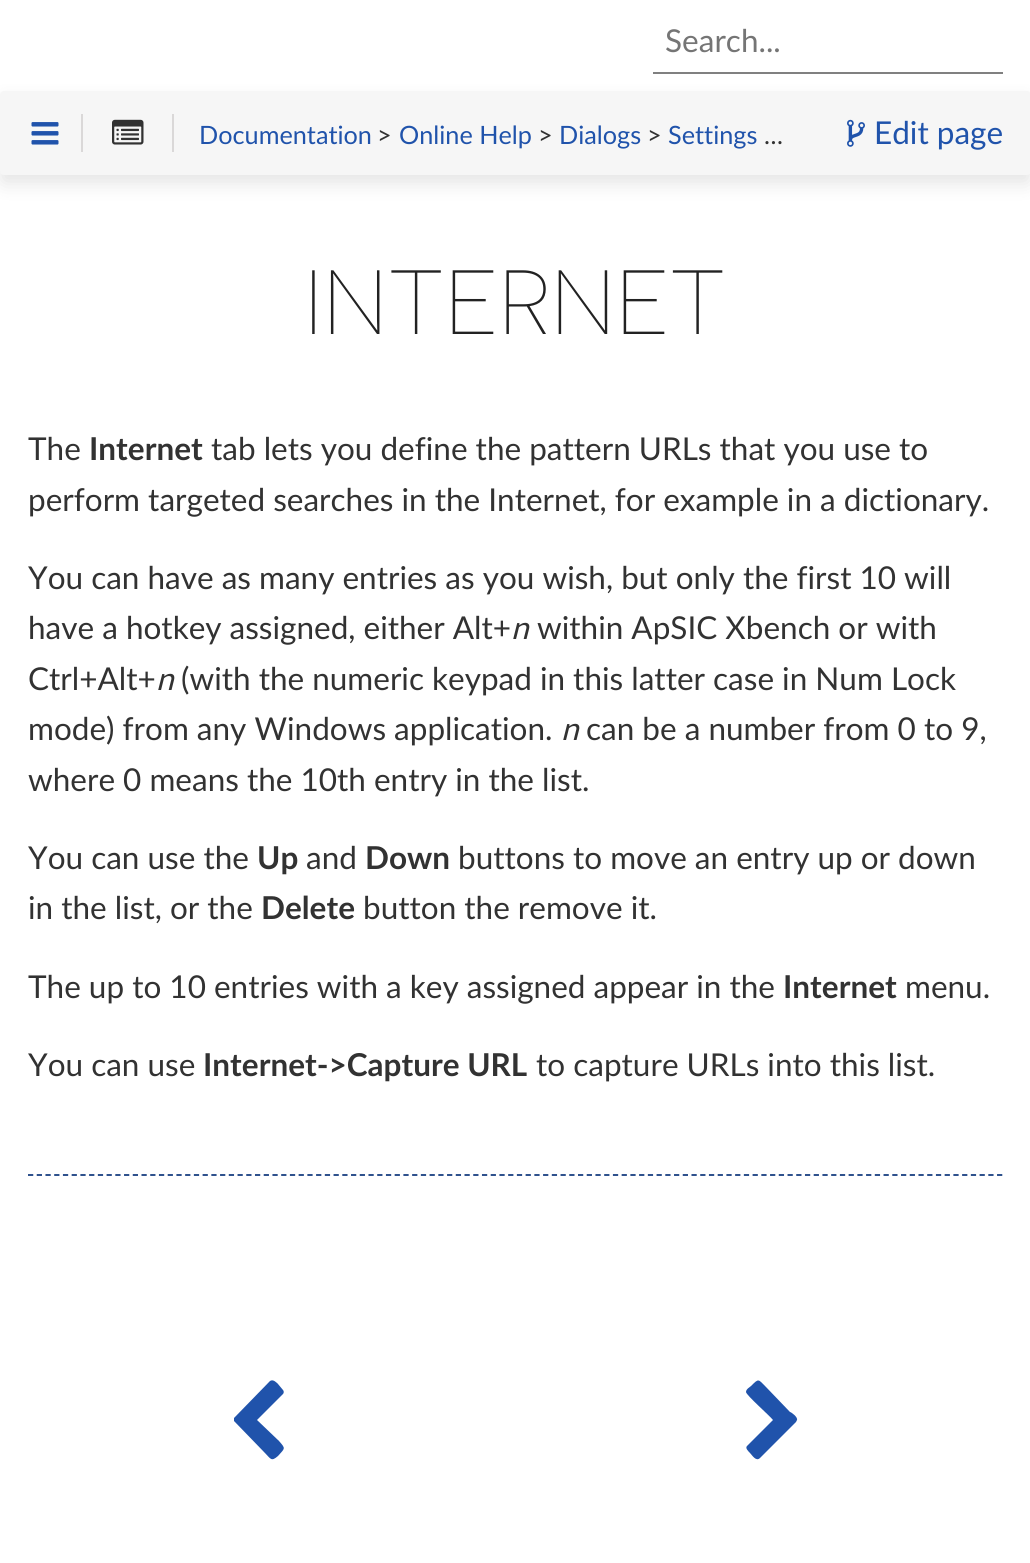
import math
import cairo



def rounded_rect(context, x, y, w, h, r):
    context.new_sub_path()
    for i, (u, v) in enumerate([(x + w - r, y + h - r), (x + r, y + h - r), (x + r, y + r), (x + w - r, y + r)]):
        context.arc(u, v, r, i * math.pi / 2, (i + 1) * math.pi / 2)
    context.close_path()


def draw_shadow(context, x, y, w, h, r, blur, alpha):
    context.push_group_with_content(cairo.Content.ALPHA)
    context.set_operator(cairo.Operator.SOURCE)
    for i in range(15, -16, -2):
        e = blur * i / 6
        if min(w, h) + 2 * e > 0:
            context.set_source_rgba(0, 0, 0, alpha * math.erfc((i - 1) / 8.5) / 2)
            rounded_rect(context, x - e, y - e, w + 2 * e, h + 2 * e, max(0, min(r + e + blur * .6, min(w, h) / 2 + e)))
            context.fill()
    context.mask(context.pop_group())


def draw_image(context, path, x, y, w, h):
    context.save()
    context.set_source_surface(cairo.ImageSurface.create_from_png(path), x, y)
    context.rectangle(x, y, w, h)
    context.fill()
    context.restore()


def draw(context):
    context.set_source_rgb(1, 1, 1)
    context.paint()
    context.set_source_rgb(0, 0, 0)
    draw_shadow(context, 0, 100, 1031, 84, 4, 9, 0.1)
    context.set_source_rgb(128 / 255, 128 / 255, 128 / 255)
    context.rectangle(653, 72, 350, 2)
    context.fill()
    context.set_source_rgb(246 / 255, 246 / 255, 246 / 255)
    rounded_rect(context, 0, 91, 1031, 84, 4)
    context.fill()
    context.set_source_rgb(218 / 255, 216 / 255, 216 / 255)
    context.rectangle(81, 114, 2, 38)
    context.fill()
    draw_image(context, "images/1.png", 31, 122, 28, 23)
    context.rectangle(172, 114, 2, 38)
    context.fill()
    draw_image(context, "images/2.png", 112, 119, 32, 26)
    draw_image(context, "images/3.png", 847, 119, 18, 28)
    context.new_path()
    context.move_to(28, 1175)
    context.line_to(1003, 1175)
    context.set_source_rgb(24 / 255, 63 / 255, 129 / 255)
    context.set_line_width(1.8)
    context.set_dash([5.25, 3.48])
    context.stroke()
    context.set_source_rgb(32 / 255, 83 / 255, 171 / 255)
    context.new_path()
    context.move_to(283, 1394)
    context.line_to(257, 1420)
    context.line_to(279, 1441)
    context.curve_to(286, 1449, 285, 1448, 278, 1456)
    context.curve_to(271, 1462, 271, 1459, 264, 1452)
    context.line_to(234, 1421)
    context.line_to(234, 1418)
    context.line_to(270, 1381)
    context.curve_to(273, 1379, 276, 1382, 278, 1384)
    context.line_to(283, 1390)
    context.curve_to(284, 1391, 284, 1393, 283, 1394)
    context.close_path()
    context.fill()
    context.new_path()
    context.move_to(796, 1422)
    context.line_to(760, 1458)
    context.curve_to(756, 1462, 752, 1455, 750, 1453)
    context.curve_to(748, 1451, 745, 1448, 747, 1446)
    context.line_to(773, 1420)
    context.curve_to(770, 1416, 746, 1395, 746, 1392)
    context.curve_to(746, 1389, 750, 1387, 751, 1386)
    context.curve_to(759, 1378, 758, 1379, 766, 1387)
    context.line_to(790, 1412)
    context.curve_to(791, 1412, 798, 1417, 797, 1420)
    context.close_path()
    context.fill()
    context.select_font_face("Lato")
    context.set_font_size(31.5)
    context.set_source_rgb(117 / 255, 117 / 255, 117 / 255)
    context.move_to(665, 52)
    context.show_text("Search...")
    context.set_font_size(25.25)
    context.set_source_rgb(32 / 255, 83 / 255, 171 / 255)
    context.move_to(199, 144)
    context.show_text("Documentation")
    context.set_source_rgb(50 / 255, 50 / 255, 50 / 255)
    context.move_to(377, 144)
    context.show_text(">")
    context.set_source_rgb(32 / 255, 83 / 255, 171 / 255)
    context.move_to(399, 144)
    context.show_text("Online Help")
    context.set_source_rgb(50 / 255, 50 / 255, 50 / 255)
    context.move_to(538, 144)
    context.show_text(">")
    context.set_source_rgb(32 / 255, 83 / 255, 171 / 255)
    context.move_to(559, 144)
    context.show_text("Dialogs")
    context.set_source_rgb(50 / 255, 50 / 255, 50 / 255)
    context.move_to(647, 144)
    context.show_text(">")
    context.set_source_rgb(32 / 255, 83 / 255, 171 / 255)
    context.move_to(668, 144)
    context.show_text("Settings")
    context.set_source_rgb(50 / 255, 50 / 255, 50 / 255)
    context.move_to(764, 144)
    context.show_text("…")
    context.set_font_size(31.5)
    context.set_source_rgb(32 / 255, 83 / 255, 171 / 255)
    context.move_to(874, 144)
    context.show_text("Edit page")
    context.select_font_face("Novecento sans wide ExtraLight")
    context.set_font_size(91)
    context.set_source_rgb(34 / 255, 34 / 255, 34 / 255)
    context.move_to(304, 334)
    context.show_text("INTERNET")
    context.select_font_face("Lato")
    context.set_font_size(31.5)
    context.set_source_rgb(50 / 255, 50 / 255, 50 / 255)
    context.move_to(28, 460)
    context.show_text("The")
    context.select_font_face("Lato", cairo.FontSlant.NORMAL, cairo.FontWeight.BOLD)
    context.move_to(89, 460)
    context.show_text("Internet")
    context.select_font_face("Lato")
    context.move_to(211, 460)
    context.show_text("tab lets you define the pattern URLs that you use to")
    context.move_to(28, 511)
    context.show_text("perform targeted searches in the Internet, for example in a dictionary.")
    context.move_to(28, 589)
    context.show_text("You can have as many entries as you wish, but only the first 10 will")
    context.move_to(28, 639)
    context.show_text("have a hotkey assigned, either Alt+")
    context.select_font_face("Lato", cairo.FontSlant.ITALIC)
    context.move_to(511, 639)
    context.show_text("n")
    context.select_font_face("Lato")
    context.move_to(537, 639)
    context.show_text("within ApSIC Xbench or with")
    context.move_to(28, 690)
    context.show_text("Ctrl+Alt+")
    context.select_font_face("Lato", cairo.FontSlant.ITALIC)
    context.move_to(156, 690)
    context.show_text("n")
    context.select_font_face("Lato")
    context.move_to(181, 690)
    context.show_text("(with the numeric keypad in this latter case in Num Lock")
    context.move_to(28, 740)
    context.show_text("mode) from any Windows application.")
    context.select_font_face("Lato", cairo.FontSlant.ITALIC)
    context.move_to(561, 740)
    context.show_text("n")
    context.select_font_face("Lato")
    context.move_to(586, 740)
    context.show_text("can be a number from 0 to 9,")
    context.move_to(28, 791)
    context.show_text("where 0 means the 10th entry in the list.")
    context.move_to(28, 869)
    context.show_text("You can use the")
    context.select_font_face("Lato", cairo.FontSlant.NORMAL, cairo.FontWeight.BOLD)
    context.move_to(257, 869)
    context.show_text("Up")
    context.select_font_face("Lato")
    context.move_to(306, 869)
    context.show_text("and")
    context.select_font_face("Lato", cairo.FontSlant.NORMAL, cairo.FontWeight.BOLD)
    context.move_to(365, 869)
    context.show_text("Down")
    context.select_font_face("Lato")
    context.move_to(458, 869)
    context.show_text("buttons to move an entry up or down")
    context.move_to(28, 919)
    context.show_text("in the list, or the")
    context.select_font_face("Lato", cairo.FontSlant.NORMAL, cairo.FontWeight.BOLD)
    context.move_to(261, 919)
    context.show_text("Delete")
    context.select_font_face("Lato")
    context.move_to(363, 919)
    context.show_text("button the remove it.")
    context.move_to(28, 998)
    context.show_text("The up to 10 entries with a key assigned appear in the")
    context.select_font_face("Lato", cairo.FontSlant.NORMAL, cairo.FontWeight.BOLD)
    context.move_to(783, 998)
    context.show_text("Internet")
    context.select_font_face("Lato")
    context.move_to(905, 998)
    context.show_text("menu.")
    context.move_to(28, 1076)
    context.show_text("You can use")
    context.select_font_face("Lato", cairo.FontSlant.NORMAL, cairo.FontWeight.BOLD)
    context.move_to(203, 1076)
    context.show_text("Internet->Capture URL")
    context.select_font_face("Lato")
    context.move_to(536, 1076)
    context.show_text("to capture URLs into this list.")


surface = cairo.ImageSurface(cairo.Format.RGB24, 1030, 1563)
context = cairo.Context(surface)
options = cairo.FontOptions()
options.set_hint_metrics(cairo.HintMetrics.OFF)
options.set_hint_style(cairo.HintStyle.NONE)
context.set_font_options(options)
context.set_miter_limit(4)
draw(context)
surface.write_to_png("out.png")
